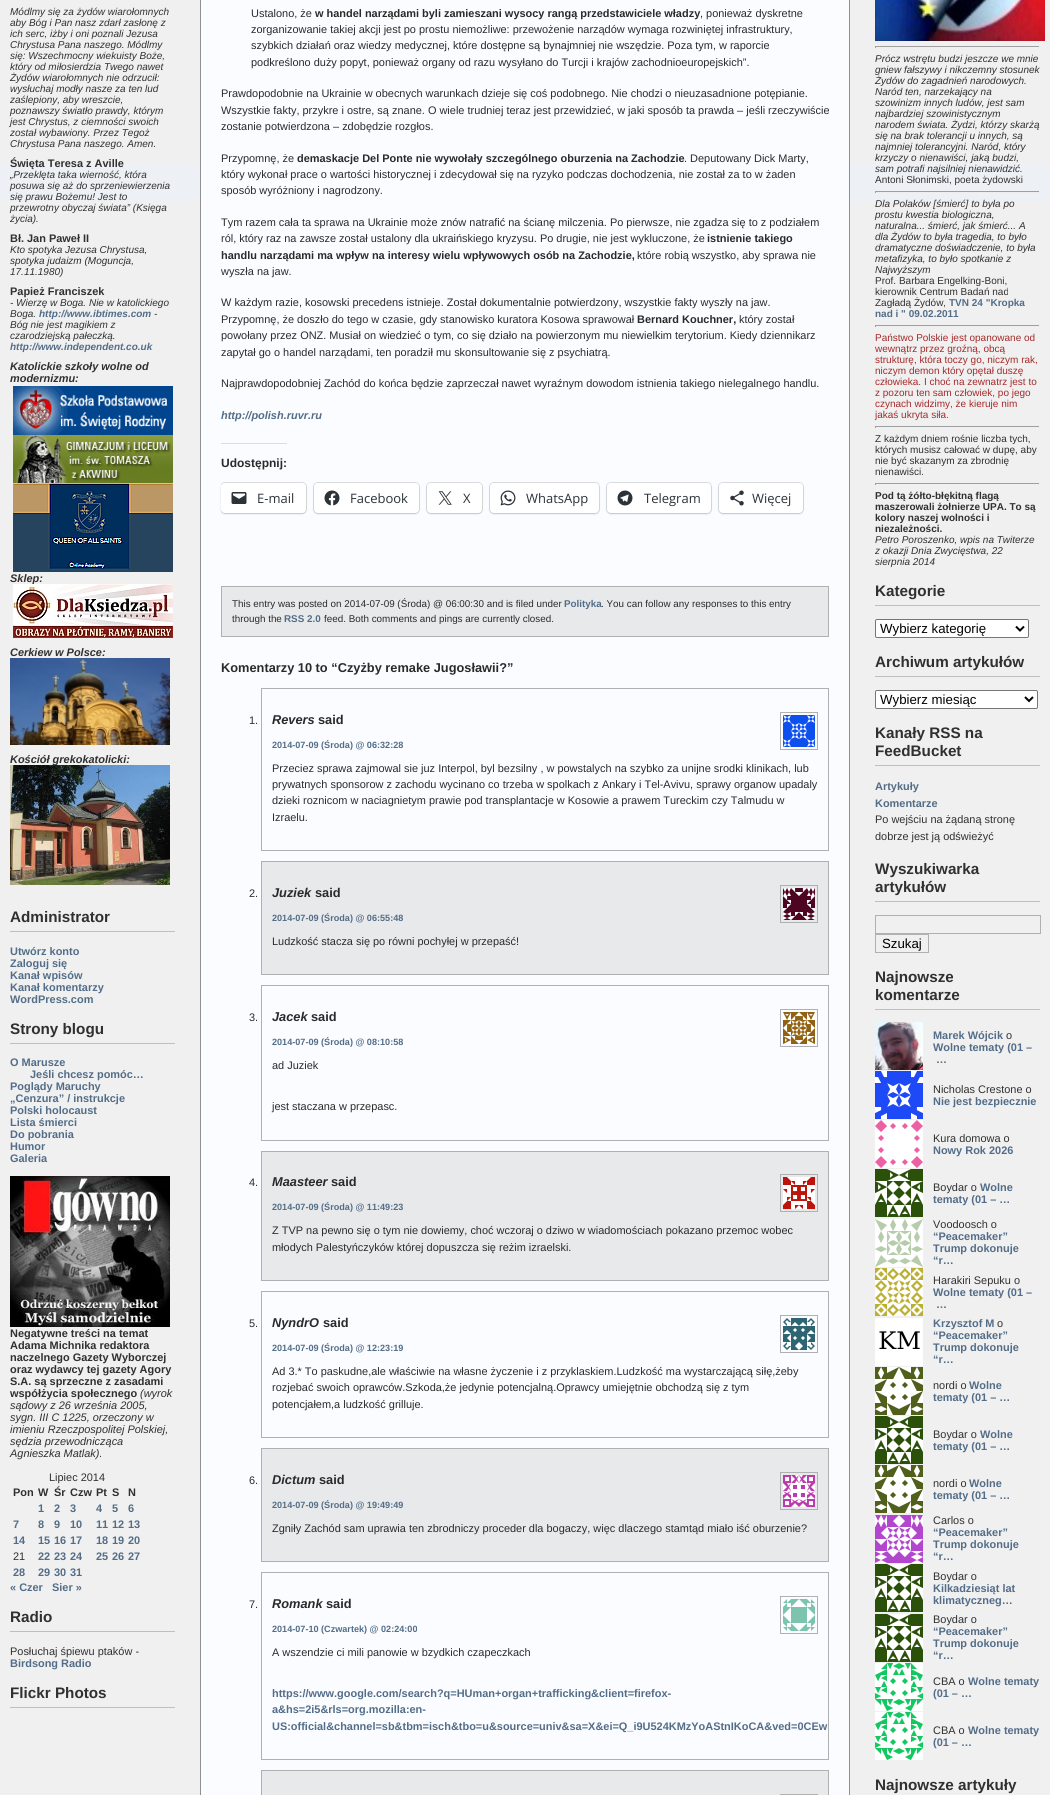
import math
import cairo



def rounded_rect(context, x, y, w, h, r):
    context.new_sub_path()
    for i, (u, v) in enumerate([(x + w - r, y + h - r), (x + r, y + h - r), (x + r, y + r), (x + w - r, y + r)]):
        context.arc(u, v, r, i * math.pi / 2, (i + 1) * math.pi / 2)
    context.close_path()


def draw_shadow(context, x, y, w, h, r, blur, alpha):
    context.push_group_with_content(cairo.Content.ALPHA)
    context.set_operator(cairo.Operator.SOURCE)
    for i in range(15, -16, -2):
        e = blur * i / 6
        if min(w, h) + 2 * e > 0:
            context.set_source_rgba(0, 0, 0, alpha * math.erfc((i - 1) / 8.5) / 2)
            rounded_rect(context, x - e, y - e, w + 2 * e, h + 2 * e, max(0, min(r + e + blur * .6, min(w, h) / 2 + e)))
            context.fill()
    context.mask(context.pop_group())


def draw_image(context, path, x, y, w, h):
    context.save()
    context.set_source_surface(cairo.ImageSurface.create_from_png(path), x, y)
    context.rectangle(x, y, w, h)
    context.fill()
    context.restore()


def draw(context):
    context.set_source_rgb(240 / 255, 240 / 255, 240 / 255)
    context.paint()
    context.set_source_rgb(237 / 255, 240 / 255, 245 / 255)
    context.rectangle(0, 164, 1050, 38)
    context.fill()
    draw_image(context, "images/1.png", 13, 386, 160, 49)
    draw_image(context, "images/2.png", 13, 435, 160, 48)
    draw_image(context, "images/3.png", 13, 483, 160, 89)
    draw_image(context, "images/5.png", 10, 658, 160, 87)
    context.set_source_rgb(190 / 255, 191 / 255, 195 / 255)
    context.rectangle(10, 931, 165, 1)
    context.fill()
    context.rectangle(10, 1043, 165, 1)
    context.fill()
    draw_image(context, "images/7.png", 10, 1176, 160, 151)
    context.rectangle(10, 1631, 165, 1)
    context.fill()
    context.rectangle(10, 1707, 165, 1)
    context.fill()
    context.set_source_rgb(250 / 255, 252 / 255, 1)
    context.rectangle(200.5, -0.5, 649, 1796)
    context.fill_preserve()
    context.set_source_rgb(144 / 255, 144 / 255, 144 / 255)
    context.set_line_width(1)
    context.stroke()
    context.set_source_rgb(220 / 255, 220 / 255, 222 / 255)
    context.rectangle(221, 443, 66, 1)
    context.fill()
    context.save()
    context.rectangle(221, 0, 608, 586)
    context.clip()
    rounded_rect(context, 220.5, 482.5, 86, 31, 4.5)
    context.set_source_rgb(220 / 255, 222 / 255, 224 / 255)
    context.stroke()
    context.restore()
    context.set_source_rgb(0, 0, 0)
    draw_shadow(context, 221, 484, 85, 30, 4, 1, 0.12)
    context.set_source_rgb(1, 1, 1)
    rounded_rect(context, 221, 483, 85, 30, 4)
    context.fill()
    draw_image(context, "images/8.png", 231, 492, 16, 12)
    rounded_rect(context, 313.5, 482.5, 106, 31, 4.5)
    context.set_source_rgb(220 / 255, 222 / 255, 224 / 255)
    context.stroke()
    context.set_source_rgb(0, 0, 0)
    draw_shadow(context, 314, 484, 105, 30, 4, 1, 0.12)
    context.set_source_rgb(1, 1, 1)
    rounded_rect(context, 314, 483, 105, 30, 4)
    context.fill()
    draw_image(context, "images/9.png", 324, 490, 16, 16)
    rounded_rect(context, 426.5, 482.5, 56, 31, 4.5)
    context.set_source_rgb(220 / 255, 222 / 255, 224 / 255)
    context.stroke()
    context.set_source_rgb(0, 0, 0)
    draw_shadow(context, 427, 484, 55, 30, 4, 1, 0.12)
    context.set_source_rgb(1, 1, 1)
    rounded_rect(context, 427, 483, 55, 30, 4)
    context.fill()
    draw_image(context, "images/10.png", 438, 491, 14, 14)
    rounded_rect(context, 489.5, 482.5, 110, 31, 4.5)
    context.set_source_rgb(220 / 255, 222 / 255, 224 / 255)
    context.stroke()
    context.set_source_rgb(0, 0, 0)
    draw_shadow(context, 490, 484, 109, 30, 4, 1, 0.12)
    context.set_source_rgb(1, 1, 1)
    rounded_rect(context, 490, 483, 109, 30, 4)
    context.fill()
    draw_image(context, "images/11.png", 500, 490, 16, 16)
    rounded_rect(context, 606.5, 482.5, 105, 31, 4.5)
    context.set_source_rgb(220 / 255, 222 / 255, 224 / 255)
    context.stroke()
    context.set_source_rgb(0, 0, 0)
    draw_shadow(context, 607, 484, 104, 30, 4, 1, 0.12)
    context.set_source_rgb(1, 1, 1)
    rounded_rect(context, 607, 483, 104, 30, 4)
    context.fill()
    draw_image(context, "images/12.png", 617, 490, 16, 16)
    rounded_rect(context, 718.5, 482.5, 85, 31, 4.5)
    context.set_source_rgb(220 / 255, 222 / 255, 224 / 255)
    context.stroke()
    context.set_source_rgb(0, 0, 0)
    draw_shadow(context, 719, 484, 84, 30, 4, 1, 0.12)
    context.set_source_rgb(1, 1, 1)
    rounded_rect(context, 719, 483, 84, 30, 4)
    context.fill()
    draw_image(context, "images/13.png", 730, 490, 14, 16)
    context.set_source_rgb(232 / 255, 233 / 255, 234 / 255)
    context.rectangle(221.5, 586.5, 607, 50)
    context.fill_preserve()
    context.set_source_rgb(176 / 255, 176 / 255, 176 / 255)
    context.stroke()
    context.rectangle(261.5, 688.5, 567, 162)
    context.stroke()
    context.rectangle(780.5, 712.5, 37, 37)
    context.stroke()
    draw_image(context, "images/14.png", 783, 715, 32, 32)
    context.set_source_rgb(232 / 255, 233 / 255, 234 / 255)
    context.rectangle(261.5, 861.5, 567, 113)
    context.fill_preserve()
    context.set_source_rgb(176 / 255, 176 / 255, 176 / 255)
    context.stroke()
    context.rectangle(780.5, 885.5, 37, 37)
    context.stroke()
    draw_image(context, "images/15.png", 783, 888, 32, 32)
    context.rectangle(261.5, 985.5, 567, 155)
    context.stroke()
    context.rectangle(780.5, 1009.5, 37, 37)
    context.stroke()
    draw_image(context, "images/16.png", 783, 1012, 32, 32)
    context.set_source_rgb(232 / 255, 233 / 255, 234 / 255)
    context.rectangle(261.5, 1151.5, 567, 129)
    context.fill_preserve()
    context.set_source_rgb(176 / 255, 176 / 255, 176 / 255)
    context.stroke()
    context.rectangle(780.5, 1174.5, 37, 37)
    context.stroke()
    draw_image(context, "images/17.png", 783, 1177, 32, 32)
    context.rectangle(261.5, 1291.5, 567, 146)
    context.stroke()
    context.rectangle(780.5, 1315.5, 37, 37)
    context.stroke()
    draw_image(context, "images/18.png", 783, 1318, 32, 32)
    context.set_source_rgb(232 / 255, 233 / 255, 234 / 255)
    context.rectangle(261.5, 1448.5, 567, 113)
    context.fill_preserve()
    context.set_source_rgb(176 / 255, 176 / 255, 176 / 255)
    context.stroke()
    context.rectangle(780.5, 1472.5, 37, 37)
    context.stroke()
    draw_image(context, "images/19.png", 783, 1475, 32, 32)
    context.rectangle(261.5, 1572.5, 567, 187)
    context.stroke()
    context.rectangle(780.5, 1596.5, 37, 37)
    context.stroke()
    draw_image(context, "images/20.png", 783, 1599, 32, 32)
    context.set_source_rgb(232 / 255, 233 / 255, 234 / 255)
    context.rectangle(261.5, 1770.5, 567, 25)
    context.fill_preserve()
    context.set_source_rgb(176 / 255, 176 / 255, 176 / 255)
    context.stroke()
    context.rectangle(780.5, 1794.5, 37, 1)
    context.stroke()
    draw_image(context, "images/21.png", 875, 0, 170, 41)
    context.set_source_rgb(159 / 255, 159 / 255, 159 / 255)
    context.rectangle(875, 46, 165, 1)
    context.fill()
    context.set_source_rgb(238 / 255, 238 / 255, 238 / 255)
    context.rectangle(1039, 46, 1, 2)
    context.fill()
    context.set_source_rgb(159 / 255, 159 / 255, 159 / 255)
    context.rectangle(875, 46, 1, 2)
    context.fill()
    context.rectangle(875, 191, 165, 1)
    context.fill()
    context.set_source_rgb(238 / 255, 238 / 255, 238 / 255)
    context.rectangle(1039, 191, 1, 2)
    context.fill()
    context.rectangle(875, 192, 165, 1)
    context.fill()
    context.set_source_rgb(159 / 255, 159 / 255, 159 / 255)
    context.rectangle(875, 191, 1, 2)
    context.fill()
    context.rectangle(875, 325, 165, 1)
    context.fill()
    context.set_source_rgb(238 / 255, 238 / 255, 238 / 255)
    context.rectangle(1039, 325, 1, 2)
    context.fill()
    context.set_source_rgb(159 / 255, 159 / 255, 159 / 255)
    context.rectangle(875, 325, 1, 2)
    context.fill()
    context.rectangle(875, 426, 165, 1)
    context.fill()
    context.set_source_rgb(238 / 255, 238 / 255, 238 / 255)
    context.rectangle(1039, 426, 1, 2)
    context.fill()
    context.set_source_rgb(159 / 255, 159 / 255, 159 / 255)
    context.rectangle(875, 426, 1, 2)
    context.fill()
    context.rectangle(875, 483, 165, 1)
    context.fill()
    context.set_source_rgb(238 / 255, 238 / 255, 238 / 255)
    context.rectangle(1039, 483, 1, 2)
    context.fill()
    context.set_source_rgb(159 / 255, 159 / 255, 159 / 255)
    context.rectangle(875, 483, 1, 2)
    context.fill()
    context.set_source_rgb(190 / 255, 191 / 255, 195 / 255)
    context.rectangle(875, 605, 165, 1)
    context.fill()
    context.set_source_rgb(1, 1, 1)
    rounded_rect(context, 875.5, 619.5, 153, 18, 1.5)
    context.fill_preserve()
    context.set_source_rgb(118 / 255, 118 / 255, 118 / 255)
    context.stroke()
    context.new_path()
    context.move_to(1016, 626.5)
    context.line_to(1020, 630.5)
    context.line_to(1024, 626.5)
    context.set_source_rgb(0, 0, 0)
    context.set_line_width(2)
    context.stroke()
    context.set_source_rgb(190 / 255, 191 / 255, 195 / 255)
    context.rectangle(875, 676, 165, 1)
    context.fill()
    context.set_source_rgb(1, 1, 1)
    rounded_rect(context, 875.5, 690.5, 162, 18, 1.5)
    context.fill_preserve()
    context.set_source_rgb(118 / 255, 118 / 255, 118 / 255)
    context.set_line_width(1)
    context.stroke()
    context.new_path()
    context.move_to(1025, 697)
    context.line_to(1029, 701)
    context.line_to(1033, 697)
    context.set_source_rgb(0, 0, 0)
    context.set_line_width(2)
    context.stroke()
    context.set_source_rgb(190 / 255, 191 / 255, 195 / 255)
    context.rectangle(875, 765, 165, 1)
    context.fill()
    context.rectangle(875, 901, 165, 1)
    context.fill()
    context.rectangle(875.5, 915.5, 165, 18)
    context.set_source_rgb(176 / 255, 176 / 255, 176 / 255)
    context.set_line_width(1)
    context.stroke()
    context.rectangle(875.5, 934.5, 53, 18)
    context.stroke()
    context.set_source_rgb(190 / 255, 191 / 255, 195 / 255)
    context.rectangle(875, 1009, 165, 1)
    context.fill()
    draw_image(context, "images/22.png", 875, 1022, 48, 48)
    draw_image(context, "images/23.png", 875, 1071, 48, 48)
    draw_image(context, "images/24.png", 875, 1120, 48, 48)
    draw_image(context, "images/25.png", 875, 1169, 48, 48)
    draw_image(context, "images/26.png", 875, 1219, 48, 48)
    draw_image(context, "images/27.png", 875, 1268, 48, 48)
    draw_image(context, "images/28.png", 875, 1318, 48, 48)
    draw_image(context, "images/29.png", 875, 1367, 48, 48)
    draw_image(context, "images/25.png", 875, 1416, 48, 48)
    draw_image(context, "images/29.png", 875, 1465, 48, 48)
    draw_image(context, "images/30.png", 875, 1515, 48, 48)
    draw_image(context, "images/25.png", 875, 1564, 48, 48)
    draw_image(context, "images/25.png", 875, 1614, 48, 48)
    draw_image(context, "images/31.png", 875, 1663, 48, 48)
    draw_image(context, "images/31.png", 875, 1712, 48, 48)
    context.select_font_face("Liberation Sans", cairo.FontSlant.ITALIC)
    context.set_font_size(10)
    context.set_source_rgb(48 / 255, 48 / 255, 48 / 255)
    context.move_to(10, 15)
    context.show_text("Módlmy się za żydów wiarołomnych")
    context.move_to(10, 26)
    context.show_text("aby Bóg i Pan nasz zdarł zasłonę z")
    context.move_to(10, 37)
    context.show_text("ich serc, iżby i oni poznali Jezusa")
    context.move_to(10, 48)
    context.show_text("Chrystusa Pana naszego. Módlmy")
    context.move_to(10, 59)
    context.show_text("się: Wszechmocny wiekuisty Boże,")
    context.move_to(10, 70)
    context.show_text("który od miłosierdzia Twego nawet")
    context.move_to(10, 81)
    context.show_text("Żydów wiarołomnych nie odrzucił:")
    context.move_to(10, 92)
    context.show_text("wysłuchaj modły nasze za ten lud")
    context.move_to(10, 103)
    context.show_text("zaślepiony, aby wreszcie,")
    context.move_to(10, 114)
    context.show_text("poznawszy światło prawdy, którym")
    context.move_to(10, 125)
    context.show_text("jest Chrystus, z ciemności swoich")
    context.move_to(10, 136)
    context.show_text("został wybawiony. Przez Tegoż")
    context.move_to(10, 147)
    context.show_text("Chrystusa Pana naszego. Amen.")
    context.select_font_face("Liberation Sans", cairo.FontSlant.NORMAL, cairo.FontWeight.BOLD)
    context.set_font_size(10.95)
    context.move_to(10, 167)
    context.show_text("Święta Teresa z Aville")
    context.select_font_face("Liberation Sans", cairo.FontSlant.ITALIC)
    context.set_font_size(10)
    context.move_to(10, 178)
    context.show_text("„Przeklęta taka wierność, która")
    context.move_to(10, 189)
    context.show_text("posuwa się aż do sprzeniewierzenia")
    context.move_to(10, 200)
    context.show_text("się prawu Bożemu! Jest to")
    context.move_to(10, 211)
    context.show_text("przewrotny obyczaj świata” (Księga")
    context.move_to(10, 222)
    context.show_text("życia).")
    context.select_font_face("Liberation Sans", cairo.FontSlant.NORMAL, cairo.FontWeight.BOLD)
    context.set_font_size(10.95)
    context.move_to(10, 242)
    context.show_text("Bł. Jan Paweł II")
    context.select_font_face("Liberation Sans", cairo.FontSlant.ITALIC)
    context.set_font_size(10)
    context.move_to(10, 253)
    context.show_text("Kto spotyka Jezusa Chrystusa,")
    context.move_to(10, 264)
    context.show_text("spotyka judaizm (Moguncja,")
    context.move_to(10, 275)
    context.show_text("17.11.1980)")
    context.select_font_face("Liberation Sans", cairo.FontSlant.NORMAL, cairo.FontWeight.BOLD)
    context.set_font_size(10.95)
    context.move_to(10, 295)
    context.show_text("Papież Franciszek")
    context.select_font_face("Liberation Sans", cairo.FontSlant.ITALIC)
    context.set_font_size(10)
    context.move_to(10, 306)
    context.show_text("- Wierzę w Boga. Nie w katolickiego")
    context.move_to(10, 317)
    context.show_text("Boga.")
    context.select_font_face("Liberation Sans", cairo.FontSlant.ITALIC, cairo.FontWeight.BOLD)
    context.set_source_rgb(83 / 255, 109 / 255, 136 / 255)
    context.move_to(39, 317)
    context.show_text("http://www.ibtimes.com")
    context.select_font_face("Liberation Sans", cairo.FontSlant.ITALIC)
    context.set_source_rgb(48 / 255, 48 / 255, 48 / 255)
    context.move_to(154, 317)
    context.show_text("-")
    context.move_to(10, 328)
    context.show_text("Bóg nie jest magikiem z")
    context.move_to(10, 339)
    context.show_text("czarodziejską pałeczką.")
    context.select_font_face("Liberation Sans", cairo.FontSlant.ITALIC, cairo.FontWeight.BOLD)
    context.set_source_rgb(83 / 255, 109 / 255, 136 / 255)
    context.move_to(10, 350)
    context.show_text("http://www.independent.co.uk")
    context.set_font_size(10.95)
    context.set_source_rgb(48 / 255, 48 / 255, 48 / 255)
    context.move_to(10, 370)
    context.show_text("Katolickie szkoły wolne od")
    context.move_to(10, 382)
    context.show_text("modernizmu:")
    context.move_to(10, 582)
    context.show_text("Sklep:")
    draw_image(context, "images/4.png", 13, 584, 160, 54)
    context.move_to(10, 656)
    context.show_text("Cerkiew w Polsce:")
    context.move_to(10, 763)
    context.show_text("Kościół grekokatolicki:")
    draw_image(context, "images/6.png", 10, 765, 160, 120)
    context.select_font_face("Liberation Sans", cairo.FontSlant.NORMAL, cairo.FontWeight.BOLD)
    context.set_font_size(15.25)
    context.move_to(10, 922)
    context.show_text("Administrator")
    context.set_font_size(10.95)
    context.set_source_rgb(83 / 255, 109 / 255, 136 / 255)
    context.move_to(10, 955)
    context.show_text("Utwórz konto")
    context.move_to(10, 967)
    context.show_text("Zaloguj się")
    context.move_to(10, 979)
    context.show_text("Kanał wpisów")
    context.move_to(10, 991)
    context.show_text("Kanał komentarzy")
    context.move_to(10, 1003)
    context.show_text("WordPress.com")
    context.set_font_size(15.25)
    context.set_source_rgb(48 / 255, 48 / 255, 48 / 255)
    context.move_to(10, 1034)
    context.show_text("Strony blogu")
    context.set_font_size(10.95)
    context.set_source_rgb(83 / 255, 109 / 255, 136 / 255)
    context.move_to(10, 1066)
    context.show_text("O Marusze")
    context.move_to(30, 1078)
    context.show_text("Jeśli chcesz pomóc…")
    context.move_to(10, 1090)
    context.show_text("Poglądy Maruchy")
    context.move_to(10, 1102)
    context.show_text("„Cenzura” / instrukcje")
    context.move_to(10, 1114)
    context.show_text("Polski holocaust")
    context.move_to(10, 1126)
    context.show_text("Lista śmierci")
    context.move_to(10, 1138)
    context.show_text("Do pobrania")
    context.move_to(10, 1150)
    context.show_text("Humor")
    context.move_to(10, 1162)
    context.show_text("Galeria")
    context.set_source_rgb(48 / 255, 48 / 255, 48 / 255)
    context.move_to(10, 1337)
    context.show_text("Negatywne treści na temat")
    context.move_to(10, 1349)
    context.show_text("Adama Michnika redaktora")
    context.move_to(10, 1361)
    context.show_text("naczelnego Gazety Wyborczej")
    context.move_to(10, 1373)
    context.show_text("oraz wydawcy tej gazety Agory")
    context.move_to(10, 1385)
    context.show_text("S.A. są sprzeczne z zasadami")
    context.move_to(10, 1397)
    context.show_text("współżycia społecznego")
    context.select_font_face("Liberation Sans", cairo.FontSlant.ITALIC)
    context.move_to(140, 1397)
    context.show_text("(wyrok")
    context.move_to(10, 1409)
    context.show_text("sądowy z 26 września 2005,")
    context.move_to(10, 1421)
    context.show_text("sygn. III C 1225, orzeczony w")
    context.move_to(10, 1433)
    context.show_text("imieniu Rzeczpospolitej Polskiej,")
    context.move_to(10, 1445)
    context.show_text("sędzia przewodnicząca")
    context.move_to(10, 1457)
    context.show_text("Agnieszka Matlak).")
    context.select_font_face("Liberation Sans")
    context.move_to(49, 1481)
    context.show_text("Lipiec 2014")
    context.select_font_face("Liberation Sans", cairo.FontSlant.NORMAL, cairo.FontWeight.BOLD)
    context.move_to(13, 1496)
    context.show_text("Pon")
    context.move_to(38, 1496)
    context.show_text("W")
    context.move_to(54, 1496)
    context.show_text("Śr")
    context.move_to(70, 1496)
    context.show_text("Czw")
    context.move_to(96, 1496)
    context.show_text("Pt")
    context.move_to(112, 1496)
    context.show_text("S")
    context.move_to(128, 1496)
    context.show_text("N")
    context.set_source_rgb(83 / 255, 109 / 255, 136 / 255)
    context.move_to(38, 1512)
    context.show_text("1")
    context.move_to(54, 1512)
    context.show_text("2")
    context.move_to(70, 1512)
    context.show_text("3")
    context.move_to(96, 1512)
    context.show_text("4")
    context.move_to(112, 1512)
    context.show_text("5")
    context.move_to(128, 1512)
    context.show_text("6")
    context.move_to(13, 1528)
    context.show_text("7")
    context.move_to(38, 1528)
    context.show_text("8")
    context.move_to(54, 1528)
    context.show_text("9")
    context.move_to(70, 1528)
    context.show_text("10")
    context.move_to(96, 1528)
    context.show_text("11")
    context.move_to(112, 1528)
    context.show_text("12")
    context.move_to(128, 1528)
    context.show_text("13")
    context.move_to(13, 1544)
    context.show_text("14")
    context.move_to(38, 1544)
    context.show_text("15")
    context.move_to(54, 1544)
    context.show_text("16")
    context.move_to(70, 1544)
    context.show_text("17")
    context.move_to(96, 1544)
    context.show_text("18")
    context.move_to(112, 1544)
    context.show_text("19")
    context.move_to(128, 1544)
    context.show_text("20")
    context.select_font_face("Liberation Sans")
    context.set_source_rgb(48 / 255, 48 / 255, 48 / 255)
    context.move_to(13, 1560)
    context.show_text("21")
    context.select_font_face("Liberation Sans", cairo.FontSlant.NORMAL, cairo.FontWeight.BOLD)
    context.set_source_rgb(83 / 255, 109 / 255, 136 / 255)
    context.move_to(38, 1560)
    context.show_text("22")
    context.move_to(54, 1560)
    context.show_text("23")
    context.move_to(70, 1560)
    context.show_text("24")
    context.move_to(96, 1560)
    context.show_text("25")
    context.move_to(112, 1560)
    context.show_text("26")
    context.move_to(128, 1560)
    context.show_text("27")
    context.move_to(13, 1576)
    context.show_text("28")
    context.move_to(38, 1576)
    context.show_text("29")
    context.move_to(54, 1576)
    context.show_text("30")
    context.move_to(70, 1576)
    context.show_text("31")
    context.move_to(10, 1591)
    context.show_text("« Czer")
    context.move_to(52, 1591)
    context.show_text("Sier »")
    context.set_font_size(15.25)
    context.set_source_rgb(48 / 255, 48 / 255, 48 / 255)
    context.move_to(10, 1622)
    context.show_text("Radio")
    context.select_font_face("Liberation Sans")
    context.set_font_size(10.95)
    context.move_to(10, 1655)
    context.show_text("Posłuchaj śpiewu ptaków -")
    context.select_font_face("Liberation Sans", cairo.FontSlant.NORMAL, cairo.FontWeight.BOLD)
    context.set_source_rgb(83 / 255, 109 / 255, 136 / 255)
    context.move_to(10, 1667)
    context.show_text("Birdsong Radio")
    context.set_font_size(15.25)
    context.set_source_rgb(48 / 255, 48 / 255, 48 / 255)
    context.move_to(10, 1698)
    context.show_text("Flickr Photos")
    context.select_font_face("Liberation Sans")
    context.set_font_size(10.95)
    context.set_source_rgb(42 / 255, 42 / 255, 42 / 255)
    context.move_to(251, 17)
    context.show_text("Ustalono, że")
    context.select_font_face("Liberation Sans", cairo.FontSlant.NORMAL, cairo.FontWeight.BOLD)
    context.move_to(315, 17)
    context.show_text("w handel narządami byli zamieszani wysocy rangą przedstawiciele władzy")
    context.select_font_face("Liberation Sans")
    context.move_to(700, 17)
    context.show_text(", ponieważ dyskretne")
    context.move_to(251, 33)
    context.show_text("zorganizowanie takiej akcji jest po prostu niemożliwe: przewożenie narządów wymaga rozwiniętej infrastruktury,")
    context.move_to(251, 49)
    context.show_text("szybkich działań oraz wiedzy medycznej, które dostępne są bynajmniej nie wszędzie. Poza tym, w raporcie")
    context.move_to(251, 66)
    context.show_text("podkreślono duży popyt, ponieważ organy od razu wysyłano do Turcji i krajów zachodnioeuropejskich”.")
    context.move_to(221, 97)
    context.show_text("Prawdopodobnie na Ukrainie w obecnych warunkach dzieje się coś podobnego. Nie chodzi o nieuzasadnione potępianie.")
    context.move_to(221, 114)
    context.show_text("Wszystkie fakty, przykre i ostre, są znane. O wiele trudniej teraz jest przewidzieć, w jaki sposób ta prawda – jeśli rzeczywiście")
    context.move_to(221, 130)
    context.show_text("zostanie potwierdzona – zdobędzie rozgłos.")
    context.move_to(221, 162)
    context.show_text("Przypomnę, że")
    context.select_font_face("Liberation Sans", cairo.FontSlant.NORMAL, cairo.FontWeight.BOLD)
    context.move_to(297, 162)
    context.show_text("demaskacje Del Ponte nie wywołały szczególnego oburzenia na Zachodzie")
    context.select_font_face("Liberation Sans")
    context.move_to(684, 162)
    context.show_text(". Deputowany Dick Marty,")
    context.move_to(221, 178)
    context.show_text("który wykonał prace o wartości historycznej i zdecydował się na ryzyko podczas dochodzenia, nie został za to w żaden")
    context.move_to(221, 194)
    context.show_text("sposób wyróżniony i nagrodzony.")
    context.move_to(221, 226)
    context.show_text("Tym razem cała ta sprawa na Ukrainie może znów natrafić na ścianę milczenia. Po pierwsze, nie zgadza się to z podziałem")
    context.move_to(221, 242)
    context.show_text("ról, który raz na zawsze został ustalony dla ukraińskiego kryzysu. Po drugie, nie jest wykluczone, że")
    context.select_font_face("Liberation Sans", cairo.FontSlant.NORMAL, cairo.FontWeight.BOLD)
    context.move_to(707, 242)
    context.show_text("istnienie takiego")
    context.move_to(221, 259)
    context.show_text("handlu narządami ma wpływ na interesy wielu wpływowych osób na Zachodzie,")
    context.select_font_face("Liberation Sans")
    context.move_to(637, 259)
    context.show_text("które robią wszystko, aby sprawa nie")
    context.move_to(221, 275)
    context.show_text("wyszła na jaw.")
    context.move_to(221, 306)
    context.show_text("W każdym razie, kosowski precedens istnieje. Został dokumentalnie potwierdzony, wszystkie fakty wyszły na jaw.")
    context.move_to(221, 323)
    context.show_text("Przypomnę, że doszło do tego w czasie, gdy stanowisko kuratora Kosowa sprawował")
    context.select_font_face("Liberation Sans", cairo.FontSlant.NORMAL, cairo.FontWeight.BOLD)
    context.move_to(637, 323)
    context.show_text("Bernard Kouchner,")
    context.select_font_face("Liberation Sans")
    context.move_to(739, 323)
    context.show_text("który został")
    context.move_to(221, 339)
    context.show_text("powołany przez ONZ. Musiał on wiedzieć o tym, co się działo na powierzonym mu niewielkim terytorium. Kiedy dziennikarz")
    context.move_to(221, 356)
    context.show_text("zapytał go o handel narządami, ten poradził mu skonsultowanie się z psychiatrą.")
    context.move_to(221, 387)
    context.show_text("Najprawdopodobniej Zachód do końca będzie zaprzeczał nawet wyraźnym dowodom istnienia takiego nielegalnego handlu.")
    context.select_font_face("Liberation Sans", cairo.FontSlant.ITALIC, cairo.FontWeight.BOLD)
    context.set_source_rgb(83 / 255, 109 / 255, 136 / 255)
    context.move_to(221, 419)
    context.show_text("http://polish.ruvr.ru")
    context.select_font_face("Liberation Sans", cairo.FontSlant.NORMAL, cairo.FontWeight.BOLD)
    context.set_font_size(12)
    context.set_source_rgb(42 / 255, 42 / 255, 42 / 255)
    context.move_to(221, 467)
    context.show_text("Udostępnij:")
    context.select_font_face("Open Sans")
    context.set_font_size(13)
    context.set_source_rgb(44 / 255, 51 / 255, 56 / 255)
    context.move_to(257, 503)
    context.show_text("E-mail")
    context.move_to(350, 503)
    context.show_text("Facebook")
    context.move_to(463, 503)
    context.show_text("X")
    context.move_to(526, 503)
    context.show_text("WhatsApp")
    context.move_to(644, 503)
    context.show_text("Telegram")
    context.move_to(752, 503)
    context.show_text("Więcej")
    context.select_font_face("Liberation Sans")
    context.set_font_size(9.85)
    context.set_source_rgb(42 / 255, 42 / 255, 42 / 255)
    context.move_to(232, 607)
    context.show_text("This entry was posted on 2014-07-09 (Środa) @ 06:00:30 and is filed under")
    context.select_font_face("Liberation Sans", cairo.FontSlant.NORMAL, cairo.FontWeight.BOLD)
    context.set_source_rgb(83 / 255, 109 / 255, 136 / 255)
    context.move_to(564, 607)
    context.show_text("Polityka")
    context.select_font_face("Liberation Sans")
    context.set_source_rgb(42 / 255, 42 / 255, 42 / 255)
    context.move_to(601, 607)
    context.show_text(". You can follow any responses to this entry")
    context.move_to(232, 622)
    context.show_text("through the")
    context.select_font_face("Liberation Sans", cairo.FontSlant.NORMAL, cairo.FontWeight.BOLD)
    context.set_source_rgb(83 / 255, 109 / 255, 136 / 255)
    context.move_to(284, 622)
    context.show_text("RSS 2.0")
    context.select_font_face("Liberation Sans")
    context.set_source_rgb(42 / 255, 42 / 255, 42 / 255)
    context.move_to(324, 622)
    context.show_text("feed. Both comments and pings are currently closed.")
    context.select_font_face("Liberation Sans", cairo.FontSlant.NORMAL, cairo.FontWeight.BOLD)
    context.set_font_size(12.8)
    context.move_to(221, 672)
    context.show_text("Komentarzy 10 to “Czyżby remake Jugosławii?”")
    context.select_font_face("Liberation Sans")
    context.set_font_size(10.95)
    context.move_to(249, 724)
    context.show_text("1.")
    context.select_font_face("Liberation Sans", cairo.FontSlant.ITALIC, cairo.FontWeight.BOLD)
    context.set_font_size(12.8)
    context.move_to(272, 724)
    context.show_text("Revers")
    context.select_font_face("Liberation Sans", cairo.FontSlant.NORMAL, cairo.FontWeight.BOLD)
    context.move_to(318, 724)
    context.show_text("said")
    context.set_font_size(9.1)
    context.set_source_rgb(83 / 255, 109 / 255, 136 / 255)
    context.move_to(272, 748)
    context.show_text("2014-07-09 (Środa) @ 06:32:28")
    context.select_font_face("Liberation Sans")
    context.set_font_size(10.95)
    context.set_source_rgb(42 / 255, 42 / 255, 42 / 255)
    context.move_to(272, 772)
    context.show_text("Przeciez sprawa zajmowal sie juz Interpol, byl bezsilny , w powstalych na szybko za unijne srodki klinikach, lub")
    context.move_to(272, 788)
    context.show_text("prywatnych sponsorow z zachodu wycinano co trzeba w spolkach z Ankary i Tel-Avivu, sprawy organow upadaly")
    context.move_to(272, 804)
    context.show_text("dzieki roznicom w naciagnietym prawie pod transplantacje w Kosowie a prawem Tureckim czy Talmudu w")
    context.move_to(272, 821)
    context.show_text("Izraelu.")
    context.move_to(249, 897)
    context.show_text("2.")
    context.select_font_face("Liberation Sans", cairo.FontSlant.ITALIC, cairo.FontWeight.BOLD)
    context.set_font_size(12.8)
    context.move_to(272, 897)
    context.show_text("Juziek")
    context.select_font_face("Liberation Sans", cairo.FontSlant.NORMAL, cairo.FontWeight.BOLD)
    context.move_to(315, 897)
    context.show_text("said")
    context.set_font_size(9.1)
    context.set_source_rgb(83 / 255, 109 / 255, 136 / 255)
    context.move_to(272, 921)
    context.show_text("2014-07-09 (Środa) @ 06:55:48")
    context.select_font_face("Liberation Sans")
    context.set_font_size(10.95)
    context.set_source_rgb(42 / 255, 42 / 255, 42 / 255)
    context.move_to(272, 945)
    context.show_text("Ludzkość stacza się po równi pochyłej w przepaść!")
    context.move_to(249, 1021)
    context.show_text("3.")
    context.select_font_face("Liberation Sans", cairo.FontSlant.ITALIC, cairo.FontWeight.BOLD)
    context.set_font_size(12.8)
    context.move_to(272, 1021)
    context.show_text("Jacek")
    context.select_font_face("Liberation Sans", cairo.FontSlant.NORMAL, cairo.FontWeight.BOLD)
    context.move_to(311, 1021)
    context.show_text("said")
    context.set_font_size(9.1)
    context.set_source_rgb(83 / 255, 109 / 255, 136 / 255)
    context.move_to(272, 1045)
    context.show_text("2014-07-09 (Środa) @ 08:10:58")
    context.select_font_face("Liberation Sans")
    context.set_font_size(10.95)
    context.set_source_rgb(42 / 255, 42 / 255, 42 / 255)
    context.move_to(272, 1069)
    context.show_text("ad Juziek")
    context.move_to(272, 1110)
    context.show_text("jest staczana w przepasc.")
    context.move_to(249, 1186)
    context.show_text("4.")
    context.select_font_face("Liberation Sans", cairo.FontSlant.ITALIC, cairo.FontWeight.BOLD)
    context.set_font_size(12.8)
    context.move_to(272, 1186)
    context.show_text("Maasteer")
    context.select_font_face("Liberation Sans", cairo.FontSlant.NORMAL, cairo.FontWeight.BOLD)
    context.move_to(331, 1186)
    context.show_text("said")
    context.set_font_size(9.1)
    context.set_source_rgb(83 / 255, 109 / 255, 136 / 255)
    context.move_to(272, 1210)
    context.show_text("2014-07-09 (Środa) @ 11:49:23")
    context.select_font_face("Liberation Sans")
    context.set_font_size(10.95)
    context.set_source_rgb(42 / 255, 42 / 255, 42 / 255)
    context.move_to(272, 1234)
    context.show_text("Z TVP na pewno się o tym nie dowiemy, choć wczoraj o dziwo w wiadomościach pokazano przemoc wobec")
    context.move_to(272, 1251)
    context.show_text("młodych Palestyńczyków której dopuszcza się reżim izraelski.")
    context.move_to(249, 1327)
    context.show_text("5.")
    context.select_font_face("Liberation Sans", cairo.FontSlant.ITALIC, cairo.FontWeight.BOLD)
    context.set_font_size(12.8)
    context.move_to(272, 1327)
    context.show_text("NyndrO")
    context.select_font_face("Liberation Sans", cairo.FontSlant.NORMAL, cairo.FontWeight.BOLD)
    context.move_to(323, 1327)
    context.show_text("said")
    context.set_font_size(9.1)
    context.set_source_rgb(83 / 255, 109 / 255, 136 / 255)
    context.move_to(272, 1351)
    context.show_text("2014-07-09 (Środa) @ 12:23:19")
    context.select_font_face("Liberation Sans")
    context.set_font_size(10.95)
    context.set_source_rgb(42 / 255, 42 / 255, 42 / 255)
    context.move_to(272, 1375)
    context.show_text("Ad 3.* To paskudne,ale właściwie na własne życzenie i z przyklaskiem.Ludzkość ma wystarczającą siłę,żeby")
    context.move_to(272, 1391)
    context.show_text("rozjebać swoich oprawców.Szkoda,że jedynie potencjalną.Oprawcy umiejętnie obchodzą się z tym")
    context.move_to(272, 1408)
    context.show_text("potencjałem,a ludzkość grilluje.")
    context.move_to(249, 1484)
    context.show_text("6.")
    context.select_font_face("Liberation Sans", cairo.FontSlant.ITALIC, cairo.FontWeight.BOLD)
    context.set_font_size(12.8)
    context.move_to(272, 1484)
    context.show_text("Dictum")
    context.select_font_face("Liberation Sans", cairo.FontSlant.NORMAL, cairo.FontWeight.BOLD)
    context.move_to(319, 1484)
    context.show_text("said")
    context.set_font_size(9.1)
    context.set_source_rgb(83 / 255, 109 / 255, 136 / 255)
    context.move_to(272, 1508)
    context.show_text("2014-07-09 (Środa) @ 19:49:49")
    context.select_font_face("Liberation Sans")
    context.set_font_size(10.95)
    context.set_source_rgb(42 / 255, 42 / 255, 42 / 255)
    context.move_to(272, 1532)
    context.show_text("Zgniły Zachód sam uprawia ten zbrodniczy proceder dla bogaczy, więc dlaczego stamtąd miało iść oburzenie?")
    context.move_to(249, 1608)
    context.show_text("7.")
    context.select_font_face("Liberation Sans", cairo.FontSlant.ITALIC, cairo.FontWeight.BOLD)
    context.set_font_size(12.8)
    context.move_to(272, 1608)
    context.show_text("Romank")
    context.select_font_face("Liberation Sans", cairo.FontSlant.NORMAL, cairo.FontWeight.BOLD)
    context.move_to(326, 1608)
    context.show_text("said")
    context.set_font_size(9.1)
    context.set_source_rgb(83 / 255, 109 / 255, 136 / 255)
    context.move_to(272, 1632)
    context.show_text("2014-07-10 (Czwartek) @ 02:24:00")
    context.select_font_face("Liberation Sans")
    context.set_font_size(10.95)
    context.set_source_rgb(42 / 255, 42 / 255, 42 / 255)
    context.move_to(272, 1656)
    context.show_text("A wszendzie ci mili panowie w bzydkich czapeczkach")
    context.select_font_face("Liberation Sans", cairo.FontSlant.NORMAL, cairo.FontWeight.BOLD)
    context.set_source_rgb(83 / 255, 109 / 255, 136 / 255)
    context.move_to(272, 1697)
    context.show_text("https://www.google.com/search?q=HUman+organ+trafficking&client=firefox-")
    context.move_to(272, 1713)
    context.show_text("a&hs=2i5&rls=org.mozilla:en-")
    context.move_to(272, 1730)
    context.show_text("US:official&channel=sb&tbm=isch&tbo=u&source=univ&sa=X&ei=Q_i9U524KMzYoAStnIKoCA&ved=0CEw")
    context.select_font_face("Liberation Sans", cairo.FontSlant.ITALIC)
    context.set_font_size(10)
    context.set_source_rgb(48 / 255, 48 / 255, 48 / 255)
    context.move_to(875, 62)
    context.show_text("Prócz wstrętu budzi jeszcze we mnie")
    context.move_to(875, 73)
    context.show_text("gniew fałszywy i nikczemny stosunek")
    context.move_to(875, 84)
    context.show_text("Żydów do zagadnień narodowych.")
    context.move_to(875, 95)
    context.show_text("Naród ten, narzekający na")
    context.move_to(875, 106)
    context.show_text("szowinizm innych ludów, jest sam")
    context.move_to(875, 117)
    context.show_text("najbardziej szowinistycznym")
    context.move_to(875, 128)
    context.show_text("narodem świata. Żydzi, którzy skarżą")
    context.move_to(875, 139)
    context.show_text("się na brak tolerancji u innych, są")
    context.move_to(875, 150)
    context.show_text("najmniej tolerancyjni. Naród, który")
    context.move_to(875, 161)
    context.show_text("krzyczy o nienawiści, jaką budzi,")
    context.move_to(875, 172)
    context.show_text("sam potrafi najsilniej nienawidzić.")
    context.select_font_face("Liberation Sans")
    context.move_to(875, 183)
    context.show_text("Antoni Słonimski, poeta żydowski")
    context.select_font_face("Liberation Sans", cairo.FontSlant.ITALIC)
    context.move_to(875, 207)
    context.show_text("Dla Polaków [śmierć] to była po")
    context.move_to(875, 218)
    context.show_text("prostu kwestia biologiczna,")
    context.move_to(875, 229)
    context.show_text("naturalna... śmierć, jak śmierć... A")
    context.move_to(875, 240)
    context.show_text("dla Żydów to była tragedia, to było")
    context.move_to(875, 251)
    context.show_text("dramatyczne doświadczenie, to była")
    context.move_to(875, 262)
    context.show_text("metafizyka, to było spotkanie z")
    context.move_to(875, 273)
    context.show_text("Najwyższym")
    context.select_font_face("Liberation Sans")
    context.move_to(875, 284)
    context.show_text("Prof. Barbara Engelking-Boni,")
    context.move_to(875, 295)
    context.show_text("kierownik Centrum Badań nad")
    context.move_to(875, 306)
    context.show_text("Zagładą Żydów,")
    context.select_font_face("Liberation Sans", cairo.FontSlant.NORMAL, cairo.FontWeight.BOLD)
    context.set_source_rgb(83 / 255, 109 / 255, 136 / 255)
    context.move_to(949, 306)
    context.show_text("TVN 24 \"Kropka")
    context.move_to(875, 317)
    context.show_text("nad i \" 09.02.2011")
    context.select_font_face("Liberation Sans")
    context.set_source_rgb(165 / 255, 42 / 255, 42 / 255)
    context.move_to(875, 341)
    context.show_text("Państwo Polskie jest opanowane od")
    context.move_to(875, 352)
    context.show_text("wewnątrz przez groźną, obcą")
    context.move_to(875, 363)
    context.show_text("strukturę, która toczy go, niczym rak,")
    context.move_to(875, 374)
    context.show_text("niczym demon który opętał duszę")
    context.move_to(875, 385)
    context.show_text("człowieka. I choć na zewnatrz jest to")
    context.move_to(875, 396)
    context.show_text("z pozoru ten sam człowiek, po jego")
    context.move_to(875, 407)
    context.show_text("czynach widzimy, że kieruje nim")
    context.move_to(875, 418)
    context.show_text("jakaś ukryta siła.")
    context.set_source_rgb(48 / 255, 48 / 255, 48 / 255)
    context.move_to(875, 442)
    context.show_text("Z każdym dniem rośnie liczba tych,")
    context.move_to(875, 453)
    context.show_text("których musisz całować w dupę, aby")
    context.move_to(875, 464)
    context.show_text("nie być skazanym za zbrodnię")
    context.move_to(875, 475)
    context.show_text("nienawiści.")
    context.select_font_face("Liberation Sans", cairo.FontSlant.NORMAL, cairo.FontWeight.BOLD)
    context.move_to(875, 499)
    context.show_text("Pod tą żółto-błękitną flagą")
    context.move_to(875, 510)
    context.show_text("maszerowali żołnierze UPA. To są")
    context.move_to(875, 521)
    context.show_text("kolory naszej wolności i")
    context.move_to(875, 532)
    context.show_text("niezależności.")
    context.select_font_face("Liberation Sans", cairo.FontSlant.ITALIC)
    context.move_to(875, 543)
    context.show_text("Petro Poroszenko, wpis na Twiterze")
    context.move_to(875, 554)
    context.show_text("z okazji Dnia Zwycięstwa, 22")
    context.move_to(875, 565)
    context.show_text("sierpnia 2014")
    context.select_font_face("Liberation Sans", cairo.FontSlant.NORMAL, cairo.FontWeight.BOLD)
    context.set_font_size(15.25)
    context.move_to(875, 596)
    context.show_text("Kategorie")
    context.select_font_face("Liberation Sans")
    context.set_font_size(13.25)
    context.set_source_rgb(0, 0, 0)
    context.move_to(880, 633)
    context.show_text("Wybierz kategorię")
    context.select_font_face("Liberation Sans", cairo.FontSlant.NORMAL, cairo.FontWeight.BOLD)
    context.set_font_size(15.25)
    context.set_source_rgb(48 / 255, 48 / 255, 48 / 255)
    context.move_to(875, 667)
    context.show_text("Archiwum artykułów")
    context.select_font_face("Liberation Sans")
    context.set_font_size(13.25)
    context.set_source_rgb(0, 0, 0)
    context.move_to(880, 704)
    context.show_text("Wybierz miesiąc")
    context.select_font_face("Liberation Sans", cairo.FontSlant.NORMAL, cairo.FontWeight.BOLD)
    context.set_font_size(15.25)
    context.set_source_rgb(48 / 255, 48 / 255, 48 / 255)
    context.move_to(875, 738)
    context.show_text("Kanały RSS na")
    context.move_to(875, 756)
    context.show_text("FeedBucket")
    context.set_font_size(10.95)
    context.set_source_rgb(83 / 255, 109 / 255, 136 / 255)
    context.move_to(875, 790)
    context.show_text("Artykuły")
    context.move_to(875, 807)
    context.show_text("Komentarze")
    context.select_font_face("Liberation Sans")
    context.set_source_rgb(48 / 255, 48 / 255, 48 / 255)
    context.move_to(875, 823)
    context.show_text("Po wejściu na żądaną stronę")
    context.move_to(875, 840)
    context.show_text("dobrze jest ją odświeżyć")
    context.select_font_face("Liberation Sans", cairo.FontSlant.NORMAL, cairo.FontWeight.BOLD)
    context.set_font_size(15.25)
    context.move_to(875, 874)
    context.show_text("Wyszukiwarka")
    context.move_to(875, 892)
    context.show_text("artykułów")
    context.select_font_face("Liberation Sans")
    context.set_font_size(13.25)
    context.set_source_rgb(0, 0, 0)
    context.move_to(882, 948)
    context.show_text("Szukaj")
    context.select_font_face("Liberation Sans", cairo.FontSlant.NORMAL, cairo.FontWeight.BOLD)
    context.set_font_size(15.25)
    context.set_source_rgb(48 / 255, 48 / 255, 48 / 255)
    context.move_to(875, 982)
    context.show_text("Najnowsze")
    context.move_to(875, 1000)
    context.show_text("komentarze")
    context.set_font_size(10.95)
    context.set_source_rgb(83 / 255, 109 / 255, 136 / 255)
    context.move_to(933, 1039)
    context.show_text("Marek Wójcik")
    context.select_font_face("Liberation Sans")
    context.set_source_rgb(48 / 255, 48 / 255, 48 / 255)
    context.move_to(1006, 1039)
    context.show_text("o")
    context.select_font_face("Liberation Sans", cairo.FontSlant.NORMAL, cairo.FontWeight.BOLD)
    context.set_source_rgb(83 / 255, 109 / 255, 136 / 255)
    context.move_to(933, 1051)
    context.show_text("Wolne tematy (01 –")
    context.move_to(936, 1063)
    context.show_text("…")
    context.select_font_face("Liberation Sans")
    context.set_source_rgb(48 / 255, 48 / 255, 48 / 255)
    context.move_to(933, 1093)
    context.show_text("Nicholas Crestone o")
    context.select_font_face("Liberation Sans", cairo.FontSlant.NORMAL, cairo.FontWeight.BOLD)
    context.set_source_rgb(83 / 255, 109 / 255, 136 / 255)
    context.move_to(933, 1105)
    context.show_text("Nie jest bezpiecznie")
    context.select_font_face("Liberation Sans")
    context.set_source_rgb(48 / 255, 48 / 255, 48 / 255)
    context.move_to(933, 1142)
    context.show_text("Kura domowa o")
    context.select_font_face("Liberation Sans", cairo.FontSlant.NORMAL, cairo.FontWeight.BOLD)
    context.set_source_rgb(83 / 255, 109 / 255, 136 / 255)
    context.move_to(933, 1154)
    context.show_text("Nowy Rok 2026")
    context.select_font_face("Liberation Sans")
    context.set_source_rgb(48 / 255, 48 / 255, 48 / 255)
    context.move_to(933, 1191)
    context.show_text("Boydar o")
    context.select_font_face("Liberation Sans", cairo.FontSlant.NORMAL, cairo.FontWeight.BOLD)
    context.set_source_rgb(83 / 255, 109 / 255, 136 / 255)
    context.move_to(980, 1191)
    context.show_text("Wolne")
    context.move_to(933, 1203)
    context.show_text("tematy (01 – …")
    context.select_font_face("Liberation Sans")
    context.set_source_rgb(48 / 255, 48 / 255, 48 / 255)
    context.move_to(933, 1228)
    context.show_text("Voodoosch o")
    context.select_font_face("Liberation Sans", cairo.FontSlant.NORMAL, cairo.FontWeight.BOLD)
    context.set_source_rgb(83 / 255, 109 / 255, 136 / 255)
    context.move_to(933, 1240)
    context.show_text("“Peacemaker”")
    context.move_to(933, 1252)
    context.show_text("Trump dokonuje")
    context.move_to(933, 1264)
    context.show_text("“r…")
    context.select_font_face("Liberation Sans")
    context.set_source_rgb(48 / 255, 48 / 255, 48 / 255)
    context.move_to(933, 1284)
    context.show_text("Harakiri Sepuku o")
    context.select_font_face("Liberation Sans", cairo.FontSlant.NORMAL, cairo.FontWeight.BOLD)
    context.set_source_rgb(83 / 255, 109 / 255, 136 / 255)
    context.move_to(933, 1296)
    context.show_text("Wolne tematy (01 –")
    context.move_to(936, 1308)
    context.show_text("…")
    context.move_to(933, 1327)
    context.show_text("Krzysztof M")
    context.select_font_face("Liberation Sans")
    context.set_source_rgb(48 / 255, 48 / 255, 48 / 255)
    context.move_to(997, 1327)
    context.show_text("o")
    context.select_font_face("Liberation Sans", cairo.FontSlant.NORMAL, cairo.FontWeight.BOLD)
    context.set_source_rgb(83 / 255, 109 / 255, 136 / 255)
    context.move_to(933, 1339)
    context.show_text("“Peacemaker”")
    context.move_to(933, 1351)
    context.show_text("Trump dokonuje")
    context.move_to(933, 1363)
    context.show_text("“r…")
    context.select_font_face("Liberation Sans")
    context.set_source_rgb(48 / 255, 48 / 255, 48 / 255)
    context.move_to(933, 1389)
    context.show_text("nordi o")
    context.select_font_face("Liberation Sans", cairo.FontSlant.NORMAL, cairo.FontWeight.BOLD)
    context.set_source_rgb(83 / 255, 109 / 255, 136 / 255)
    context.move_to(969, 1389)
    context.show_text("Wolne")
    context.move_to(933, 1401)
    context.show_text("tematy (01 – …")
    context.select_font_face("Liberation Sans")
    context.set_source_rgb(48 / 255, 48 / 255, 48 / 255)
    context.move_to(933, 1438)
    context.show_text("Boydar o")
    context.select_font_face("Liberation Sans", cairo.FontSlant.NORMAL, cairo.FontWeight.BOLD)
    context.set_source_rgb(83 / 255, 109 / 255, 136 / 255)
    context.move_to(980, 1438)
    context.show_text("Wolne")
    context.move_to(933, 1450)
    context.show_text("tematy (01 – …")
    context.select_font_face("Liberation Sans")
    context.set_source_rgb(48 / 255, 48 / 255, 48 / 255)
    context.move_to(933, 1487)
    context.show_text("nordi o")
    context.select_font_face("Liberation Sans", cairo.FontSlant.NORMAL, cairo.FontWeight.BOLD)
    context.set_source_rgb(83 / 255, 109 / 255, 136 / 255)
    context.move_to(969, 1487)
    context.show_text("Wolne")
    context.move_to(933, 1499)
    context.show_text("tematy (01 – …")
    context.select_font_face("Liberation Sans")
    context.set_source_rgb(48 / 255, 48 / 255, 48 / 255)
    context.move_to(933, 1524)
    context.show_text("Carlos o")
    context.select_font_face("Liberation Sans", cairo.FontSlant.NORMAL, cairo.FontWeight.BOLD)
    context.set_source_rgb(83 / 255, 109 / 255, 136 / 255)
    context.move_to(933, 1536)
    context.show_text("“Peacemaker”")
    context.move_to(933, 1548)
    context.show_text("Trump dokonuje")
    context.move_to(933, 1560)
    context.show_text("“r…")
    context.select_font_face("Liberation Sans")
    context.set_source_rgb(48 / 255, 48 / 255, 48 / 255)
    context.move_to(933, 1580)
    context.show_text("Boydar o")
    context.select_font_face("Liberation Sans", cairo.FontSlant.NORMAL, cairo.FontWeight.BOLD)
    context.set_source_rgb(83 / 255, 109 / 255, 136 / 255)
    context.move_to(933, 1592)
    context.show_text("Kilkadziesiąt lat")
    context.move_to(933, 1604)
    context.show_text("klimatyczneg…")
    context.select_font_face("Liberation Sans")
    context.set_source_rgb(48 / 255, 48 / 255, 48 / 255)
    context.move_to(933, 1623)
    context.show_text("Boydar o")
    context.select_font_face("Liberation Sans", cairo.FontSlant.NORMAL, cairo.FontWeight.BOLD)
    context.set_source_rgb(83 / 255, 109 / 255, 136 / 255)
    context.move_to(933, 1635)
    context.show_text("“Peacemaker”")
    context.move_to(933, 1647)
    context.show_text("Trump dokonuje")
    context.move_to(933, 1659)
    context.show_text("“r…")
    context.select_font_face("Liberation Sans")
    context.set_source_rgb(48 / 255, 48 / 255, 48 / 255)
    context.move_to(933, 1685)
    context.show_text("CBA o")
    context.select_font_face("Liberation Sans", cairo.FontSlant.NORMAL, cairo.FontWeight.BOLD)
    context.set_source_rgb(83 / 255, 109 / 255, 136 / 255)
    context.move_to(968, 1685)
    context.show_text("Wolne tematy")
    context.move_to(933, 1697)
    context.show_text("(01 – …")
    context.select_font_face("Liberation Sans")
    context.set_source_rgb(48 / 255, 48 / 255, 48 / 255)
    context.move_to(933, 1734)
    context.show_text("CBA o")
    context.select_font_face("Liberation Sans", cairo.FontSlant.NORMAL, cairo.FontWeight.BOLD)
    context.set_source_rgb(83 / 255, 109 / 255, 136 / 255)
    context.move_to(968, 1734)
    context.show_text("Wolne tematy")
    context.move_to(933, 1746)
    context.show_text("(01 – …")
    context.set_font_size(15.25)
    context.set_source_rgb(48 / 255, 48 / 255, 48 / 255)
    context.move_to(875, 1790)
    context.show_text("Najnowsze artykuły")


surface = cairo.ImageSurface(cairo.Format.RGB24, 1050, 1795)
context = cairo.Context(surface)
options = cairo.FontOptions()
options.set_hint_metrics(cairo.HintMetrics.OFF)
options.set_hint_style(cairo.HintStyle.NONE)
context.set_font_options(options)
context.set_miter_limit(4)
draw(context)
surface.write_to_png("out.png")
